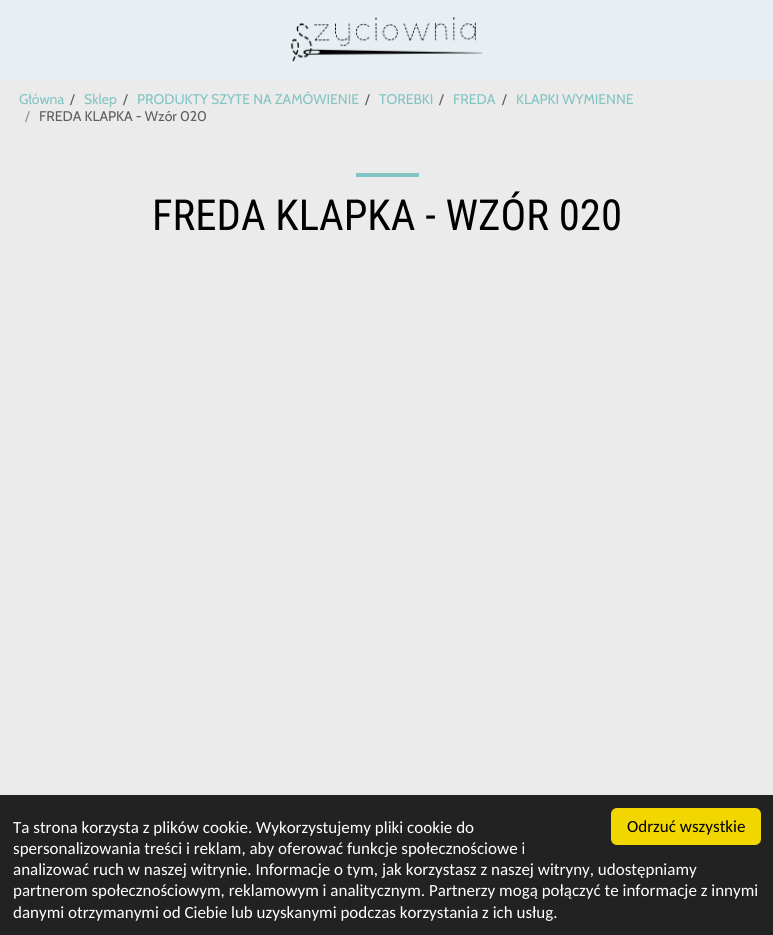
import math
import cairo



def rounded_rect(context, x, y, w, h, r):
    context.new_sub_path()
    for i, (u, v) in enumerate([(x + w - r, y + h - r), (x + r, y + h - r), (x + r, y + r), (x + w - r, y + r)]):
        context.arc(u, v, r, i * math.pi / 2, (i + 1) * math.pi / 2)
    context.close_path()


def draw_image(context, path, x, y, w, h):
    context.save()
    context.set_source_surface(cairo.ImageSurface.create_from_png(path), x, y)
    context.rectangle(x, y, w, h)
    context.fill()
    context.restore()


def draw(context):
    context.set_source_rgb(235 / 255, 235 / 255, 235 / 255)
    context.paint()
    context.set_source_rgb(231 / 255, 239 / 255, 243 / 255)
    context.rectangle(0, 0, 773, 80)
    context.fill()
    draw_image(context, "images/1.png", 291, 17, 192, 45)
    context.set_source_rgb(130 / 255, 196 / 255, 195 / 255)
    context.rectangle(356, 173, 63, 4)
    context.fill()
    context.set_source_rgb(34 / 255, 34 / 255, 34 / 255)
    context.rectangle(0, 795, 773, 140)
    context.fill()
    context.set_source_rgb(241 / 255, 214 / 255, 0)
    rounded_rect(context, 611, 808, 150, 37, 6)
    context.fill()
    context.select_font_face("Cabin")
    context.set_font_size(14)
    context.set_source_rgb(130 / 255, 196 / 255, 195 / 255)
    context.move_to(19, 104)
    context.show_text("Główna")
    context.set_source_rgb(94 / 255, 94 / 255, 94 / 255)
    context.move_to(70, 104)
    context.show_text("/")
    context.set_source_rgb(130 / 255, 196 / 255, 195 / 255)
    context.move_to(84, 104)
    context.show_text("Sklep")
    context.set_source_rgb(94 / 255, 94 / 255, 94 / 255)
    context.move_to(123, 104)
    context.show_text("/")
    context.set_source_rgb(130 / 255, 196 / 255, 195 / 255)
    context.move_to(137, 104)
    context.show_text("PRODUKTY SZYTE NA ZAMÓWIENIE")
    context.set_source_rgb(94 / 255, 94 / 255, 94 / 255)
    context.move_to(365, 104)
    context.show_text("/")
    context.set_source_rgb(130 / 255, 196 / 255, 195 / 255)
    context.move_to(379, 104)
    context.show_text("TOREBKI")
    context.set_source_rgb(94 / 255, 94 / 255, 94 / 255)
    context.move_to(439, 104)
    context.show_text("/")
    context.set_source_rgb(130 / 255, 196 / 255, 195 / 255)
    context.move_to(453, 104)
    context.show_text("FREDA")
    context.set_source_rgb(94 / 255, 94 / 255, 94 / 255)
    context.move_to(502, 104)
    context.show_text("/")
    context.set_source_rgb(130 / 255, 196 / 255, 195 / 255)
    context.move_to(516, 104)
    context.show_text("KLAPKI WYMIENNE")
    context.set_source_rgb(150 / 255, 150 / 255, 150 / 255)
    context.move_to(25, 121)
    context.show_text("/")
    context.set_source_rgb(94 / 255, 94 / 255, 94 / 255)
    context.move_to(39, 121)
    context.show_text("FREDA KLAPKA - Wzór 020")
    context.select_font_face("Roboto Condensed")
    context.set_font_size(42.75)
    context.set_source_rgb(0, 0, 0)
    context.move_to(152, 230)
    context.show_text("FREDA KLAPKA - WZÓR 020")
    context.select_font_face("Carlito")
    context.set_font_size(17)
    context.move_to(627, 832)
    context.show_text("Odrzuć wszystkie")
    context.set_source_rgb(1, 1, 1)
    context.move_to(13, 833)
    context.show_text("Ta strona korzysta z plików cookie. Wykorzystujemy pliki cookie do")
    context.move_to(13, 854)
    context.show_text("spersonalizowania treści i reklam, aby oferować funkcje społecznościowe i")
    context.move_to(13, 875)
    context.show_text("analizować ruch w naszej witrynie. Informacje o tym, jak korzystasz z naszej witryny, udostępniamy")
    context.move_to(13, 896)
    context.show_text("partnerom społecznościowym, reklamowym i analitycznym. Partnerzy mogą połączyć te informacje z innymi")
    context.move_to(13, 918)
    context.show_text("danymi otrzymanymi od Ciebie lub uzyskanymi podczas korzystania z ich usług.")


surface = cairo.ImageSurface(cairo.Format.RGB24, 773, 935)
context = cairo.Context(surface)
options = cairo.FontOptions()
options.set_hint_metrics(cairo.HintMetrics.OFF)
options.set_hint_style(cairo.HintStyle.NONE)
context.set_font_options(options)
context.set_miter_limit(4)
draw(context)
surface.write_to_png("out.png")
